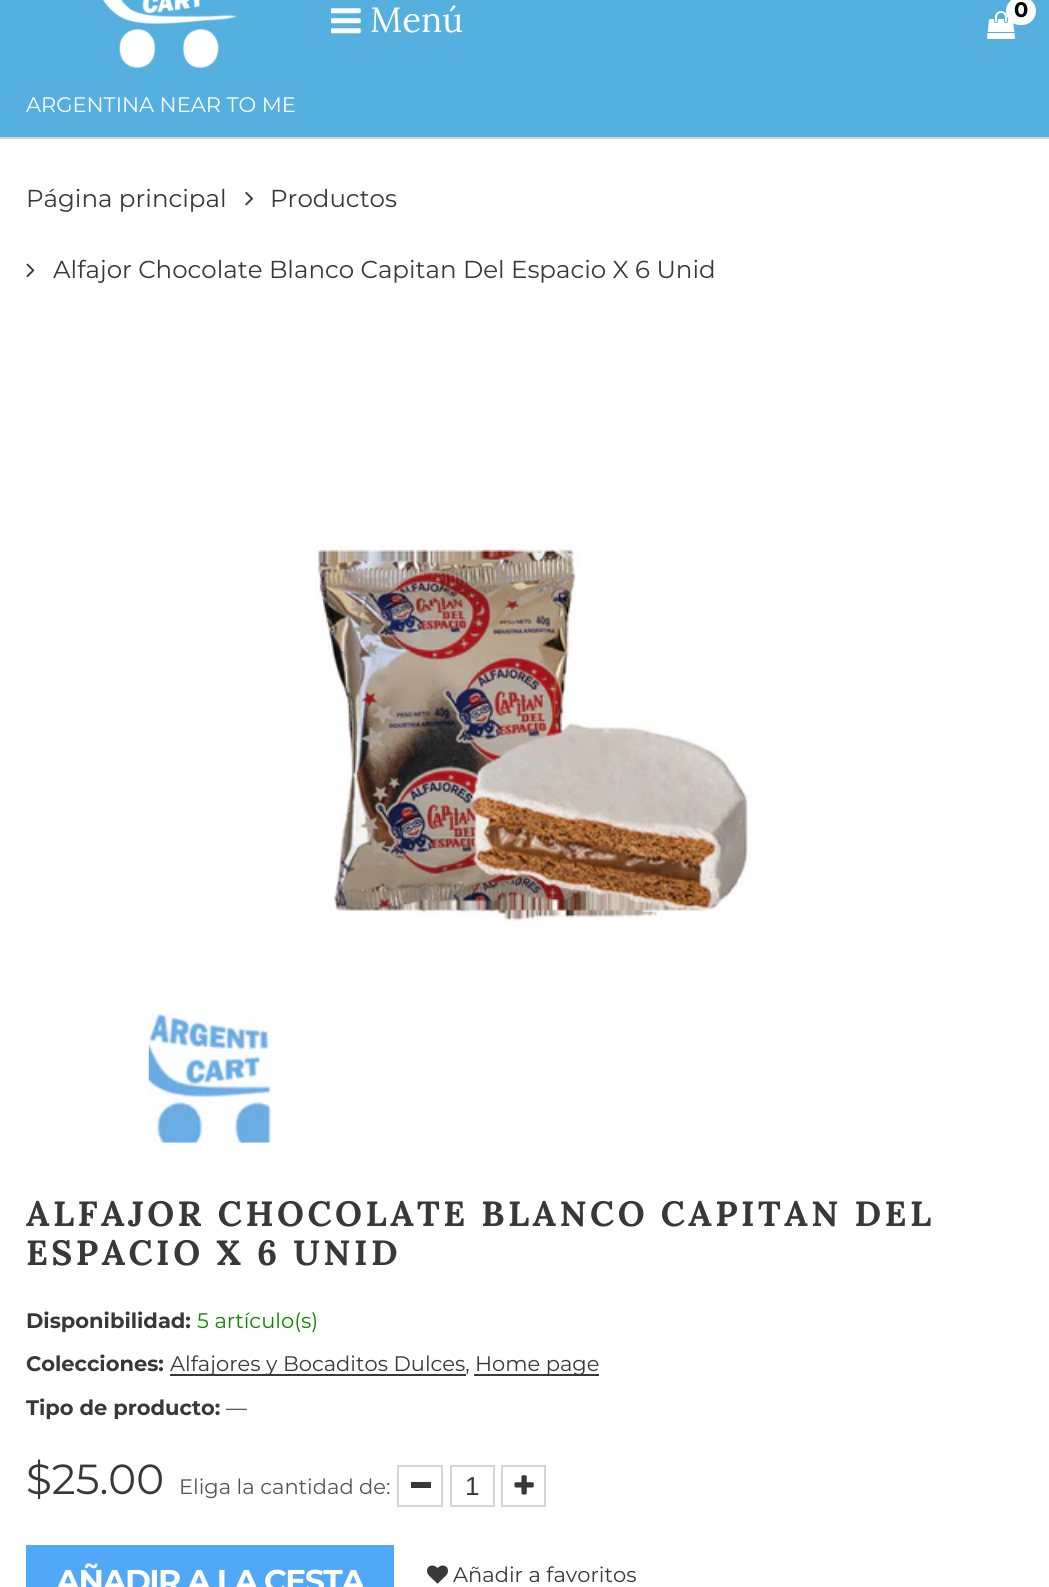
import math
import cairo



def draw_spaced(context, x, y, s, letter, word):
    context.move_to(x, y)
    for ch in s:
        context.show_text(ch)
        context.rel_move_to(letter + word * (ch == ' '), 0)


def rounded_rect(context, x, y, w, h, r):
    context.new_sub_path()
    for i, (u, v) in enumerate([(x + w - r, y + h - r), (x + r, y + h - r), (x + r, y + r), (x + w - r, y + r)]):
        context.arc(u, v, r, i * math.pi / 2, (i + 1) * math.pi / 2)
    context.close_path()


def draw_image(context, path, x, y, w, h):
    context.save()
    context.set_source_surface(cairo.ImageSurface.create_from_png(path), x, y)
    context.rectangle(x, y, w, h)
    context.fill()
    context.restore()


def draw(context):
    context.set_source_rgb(1, 1, 1)
    context.paint()
    context.set_source_rgb(85 / 255, 176 / 255, 223 / 255)
    context.rectangle(0, 0, 1049, 137)
    context.fill()
    context.set_source_rgb(213 / 255, 213 / 255, 213 / 255)
    context.rectangle(0, 137, 1049, 2)
    context.fill()
    draw_image(context, "images/1.png", 331, 8, 30, 26)
    draw_image(context, "images/2.png", 987, 11, 28, 28)
    context.set_source_rgb(1, 1, 1)
    rounded_rect(context, 1006, -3, 30, 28, 14)
    context.fill()
    draw_image(context, "images/3.png", 102, 0, 135, 68)
    draw_image(context, "images/4.png", 245, 191, 9, 15)
    draw_image(context, "images/5.png", 26, 263, 9, 15)
    draw_image(context, "images/6.png", 148, 545, 603, 598)
    context.set_source_rgb(56 / 255, 56 / 255, 56 / 255)
    context.rectangle(170, 1374, 296, 2)
    context.fill()
    context.rectangle(474, 1374, 125, 2)
    context.fill()
    context.rectangle(398, 1466, 44, 40)
    context.set_source_rgb(213 / 255, 213 / 255, 213 / 255)
    context.stroke()
    context.set_source_rgb(56 / 255, 56 / 255, 56 / 255)
    context.rectangle(411, 1482, 20, 6)
    context.fill()
    context.rectangle(451, 1466, 43, 40)
    context.set_source_rgb(213 / 255, 213 / 255, 213 / 255)
    context.stroke()
    context.rectangle(502, 1466, 43, 40)
    context.stroke()
    draw_image(context, "images/7.png", 514, 1475, 20, 20)
    context.set_source_rgb(81 / 255, 168 / 255, 247 / 255)
    context.rectangle(26, 1545, 368, 42)
    context.fill()
    draw_image(context, "images/8.png", 427, 1565, 21, 19)
    context.select_font_face("Lora")
    context.set_font_size(35)
    context.set_source_rgb(1, 1, 1)
    context.move_to(370, 32)
    context.show_text("Menú")
    context.select_font_face("Montserrat", cairo.FontSlant.NORMAL, cairo.FontWeight.BOLD)
    context.set_font_size(21)
    context.set_source_rgb(0, 0, 0)
    context.move_to(1014, 17)
    context.show_text("0")
    context.select_font_face("Montserrat")
    context.set_source_rgb(1, 1, 1)
    context.move_to(26, 112)
    context.show_text("ARGENTINA NEAR TO ME")
    context.set_font_size(24.5)
    context.set_source_rgb(56 / 255, 56 / 255, 56 / 255)
    context.move_to(26, 207)
    context.show_text("Página principal")
    context.move_to(270, 207)
    context.show_text("Productos")
    context.move_to(53, 278)
    context.show_text("Alfajor Chocolate Blanco Capitan Del Espacio X 6 Unid")
    context.select_font_face("Lora", cairo.FontSlant.NORMAL, cairo.FontWeight.BOLD)
    context.set_font_size(35)
    draw_spaced(context, 26, 1226, "ALFAJOR CHOCOLATE BLANCO CAPITAN DEL", 3.5, 0)
    draw_spaced(context, 26, 1265, "ESPACIO X 6 UNID", 3.5, 0)
    context.select_font_face("Montserrat", cairo.FontSlant.NORMAL, cairo.FontWeight.BOLD)
    context.set_font_size(21)
    context.move_to(26, 1328)
    context.show_text("Disponibilidad:")
    context.select_font_face("Montserrat")
    context.set_source_rgb(17 / 255, 133 / 255, 2 / 255)
    context.move_to(197, 1328)
    context.show_text("5 artículo(s)")
    context.select_font_face("Montserrat", cairo.FontSlant.NORMAL, cairo.FontWeight.BOLD)
    context.set_source_rgb(56 / 255, 56 / 255, 56 / 255)
    context.move_to(26, 1371)
    context.show_text("Colecciones:")
    context.select_font_face("Montserrat")
    context.move_to(170, 1371)
    context.show_text("Alfajores y Bocaditos Dulces,")
    context.move_to(475, 1371)
    context.show_text("Home page")
    context.select_font_face("Montserrat", cairo.FontSlant.NORMAL, cairo.FontWeight.BOLD)
    context.move_to(26, 1415)
    context.show_text("Tipo de producto:")
    context.select_font_face("Montserrat")
    context.move_to(226, 1415)
    context.show_text("—")
    context.set_font_size(42)
    context.move_to(26, 1494)
    context.show_text("$25.00")
    context.set_font_size(21)
    context.set_source_rgb(85 / 255, 85 / 255, 85 / 255)
    context.move_to(179, 1494)
    context.show_text("Eliga la cantidad de:")
    context.select_font_face("Liberation Sans")
    context.set_font_size(26)
    context.set_source_rgb(56 / 255, 56 / 255, 56 / 255)
    context.move_to(465, 1495)
    context.show_text("1")
    context.select_font_face("Montserrat", cairo.FontSlant.NORMAL, cairo.FontWeight.BOLD)
    context.set_font_size(31.5)
    context.set_source_rgb(1, 1, 1)
    draw_spaced(context, 56, 1592, "AÑADIR A LA CESTA", -1.6, 0)
    context.select_font_face("Montserrat")
    context.set_font_size(21)
    context.set_source_rgb(56 / 255, 56 / 255, 56 / 255)
    context.move_to(453, 1582)
    context.show_text("Añadir a favoritos")


surface = cairo.ImageSurface(cairo.Format.RGB24, 1049, 1587)
context = cairo.Context(surface)
options = cairo.FontOptions()
options.set_hint_metrics(cairo.HintMetrics.OFF)
options.set_hint_style(cairo.HintStyle.NONE)
context.set_font_options(options)
context.set_miter_limit(4)
draw(context)
surface.write_to_png("out.png")
